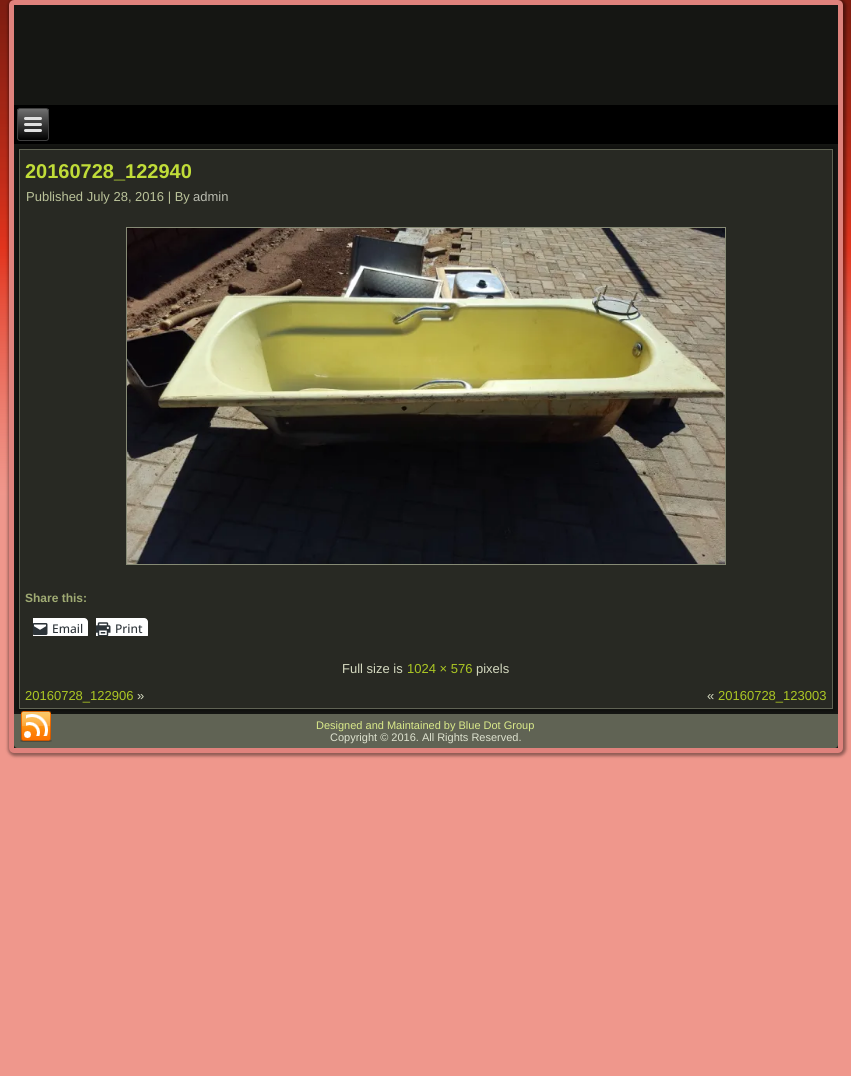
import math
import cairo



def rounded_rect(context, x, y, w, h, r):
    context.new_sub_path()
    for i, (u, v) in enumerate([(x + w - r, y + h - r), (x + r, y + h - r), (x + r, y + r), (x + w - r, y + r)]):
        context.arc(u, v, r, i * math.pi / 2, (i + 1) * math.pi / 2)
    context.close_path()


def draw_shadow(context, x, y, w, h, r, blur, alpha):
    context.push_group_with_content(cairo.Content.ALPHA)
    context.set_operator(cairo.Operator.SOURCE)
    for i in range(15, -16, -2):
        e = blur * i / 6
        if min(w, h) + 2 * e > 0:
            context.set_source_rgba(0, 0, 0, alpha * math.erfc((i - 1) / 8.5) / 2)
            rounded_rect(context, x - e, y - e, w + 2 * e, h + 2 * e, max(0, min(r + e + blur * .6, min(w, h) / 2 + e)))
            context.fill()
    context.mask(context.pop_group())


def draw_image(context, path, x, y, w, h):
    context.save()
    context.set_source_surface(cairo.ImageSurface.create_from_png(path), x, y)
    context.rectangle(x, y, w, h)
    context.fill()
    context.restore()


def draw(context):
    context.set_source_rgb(1, 1, 1)
    context.paint()
    gradient = cairo.LinearGradient(425, 0, 426, 1076)
    gradient.add_color_stop_rgba(0, 135 / 255, 31 / 255, 18 / 255, 1)
    gradient.add_color_stop_rgba(0.23, 226 / 255, 52 / 255, 29 / 255, 1)
    gradient.add_color_stop_rgba(0.46, 237 / 255, 133 / 255, 120 / 255, 1)
    context.set_source(gradient)
    context.rectangle(0, 0, 851, 1076)
    context.fill()
    gradient = cairo.LinearGradient(425, 0, 426, 1076)
    gradient.add_color_stop_rgba(0, 90 / 255, 21 / 255, 12 / 255, 0.22)
    gradient.add_color_stop_rgba(0.23, 90 / 255, 21 / 255, 12 / 255, 0)
    gradient.add_color_stop_rgba(0.23, 243 / 255, 174 / 255, 165 / 255, 0)
    gradient.add_color_stop_rgba(0.46, 243 / 255, 174 / 255, 165 / 255, 0.45)
    context.set_source(gradient)
    context.rectangle(0, 0, 851, 1076)
    context.fill()
    context.set_source_rgb(0, 0, 0)
    draw_shadow(context, 8, -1, 838, 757, 7, 1.5, 0.4)
    context.set_source_rgb(21 / 255, 22 / 255, 19 / 255)
    rounded_rect(context, 11.5, 2.5, 829, 748, 2.5)
    context.fill_preserve()
    context.set_source_rgb(223 / 255, 130 / 255, 124 / 255)
    context.set_line_width(5)
    context.stroke()
    context.set_source_rgb(96 / 255, 99 / 255, 84 / 255)
    context.new_path()
    context.move_to(14, 714)
    context.line_to(838, 714)
    context.line_to(838, 745)
    context.curve_to(838, 746.5, 836.5, 748, 835, 748)
    context.line_to(17, 748)
    context.curve_to(15.5, 748, 14, 746.5, 14, 745)
    context.close_path()
    context.fill()
    draw_image(context, "images/4.png", 20, 711, 32, 31)
    context.set_source_rgb(0, 0, 0)
    draw_shadow(context, 17, 147, 818, 564, 0, 1.5, 0.3)
    context.set_source_rgb(0, 0, 0)
    context.rectangle(14, 105, 824, 39)
    context.fill()
    context.save()
    rounded_rect(context, 17, 108, 32, 33, 3)
    context.clip()
    gradient = cairo.LinearGradient(33, 109, 33, 140)
    gradient.add_color_stop_rgba(0, 112 / 255, 112 / 255, 112 / 255, 1)
    gradient.add_color_stop_rgba(1, 0, 0, 0, 1)
    context.set_source(gradient)
    context.rectangle(17, 109, 32, 31)
    context.fill()
    context.restore()
    rounded_rect(context, 17.5, 108.5, 31, 32, 2.5)
    context.set_source_rgb(64 / 255, 64 / 255, 64 / 255)
    context.set_line_width(1)
    context.stroke()
    context.set_source_rgb(224 / 255, 224 / 255, 224 / 255)
    rounded_rect(context, 24, 117, 18, 3, 1.5)
    context.fill()
    rounded_rect(context, 24, 123, 18, 3, 1.5)
    context.fill()
    rounded_rect(context, 24, 129, 18, 3, 1.5)
    context.fill()
    context.set_source_rgb(40 / 255, 41 / 255, 35 / 255)
    context.rectangle(19.5, 149.5, 813, 559)
    context.fill_preserve()
    context.set_source_rgb(96 / 255, 99 / 255, 84 / 255)
    context.stroke()
    context.rectangle(126.5, 227.5, 599, 337)
    context.set_source_rgb(134 / 255, 138 / 255, 117 / 255)
    context.stroke()
    draw_image(context, "images/1.png", 127, 228, 598, 336)
    context.save()
    context.rectangle(33, 618, 55, 18)
    context.clip()
    rounded_rect(context, 25.5, 617.5, 63, 22, 4.5)
    context.set_source_rgb(35 / 255, 36 / 255, 31 / 255)
    context.stroke()
    context.set_source_rgb(1, 1, 1)
    rounded_rect(context, 26, 618, 62, 21, 4)
    context.fill()
    context.restore()
    draw_image(context, "images/2.png", 33, 623, 15, 12)
    context.save()
    context.rectangle(96, 618, 52, 18)
    context.clip()
    rounded_rect(context, 88.5, 617.5, 60, 22, 4.5)
    context.set_source_rgb(35 / 255, 36 / 255, 31 / 255)
    context.stroke()
    context.set_source_rgb(1, 1, 1)
    rounded_rect(context, 89, 618, 59, 21, 4)
    context.fill()
    context.restore()
    draw_image(context, "images/3.png", 96, 622, 15, 14)
    context.select_font_face("Liberation Sans", cairo.FontSlant.NORMAL, cairo.FontWeight.BOLD)
    context.set_font_size(20)
    context.set_source_rgb(192 / 255, 220 / 255, 56 / 255)
    context.move_to(25, 178)
    context.show_text("20160728_122940")
    context.select_font_face("Liberation Sans")
    context.set_font_size(13)
    context.set_source_rgb(186 / 255, 194 / 255, 153 / 255)
    context.move_to(26, 201)
    context.show_text("Published July 28, 2016 | By")
    context.set_source_rgb(185 / 255, 187 / 255, 175 / 255)
    context.move_to(193, 201)
    context.show_text("admin")
    context.select_font_face("Liberation Sans", cairo.FontSlant.NORMAL, cairo.FontWeight.BOLD)
    context.set_font_size(12)
    context.set_source_rgb(160 / 255, 171 / 255, 115 / 255)
    context.move_to(25, 602)
    context.show_text("Share this:")
    context.select_font_face("Open Sans Medium")
    context.set_source_rgb(44 / 255, 51 / 255, 56 / 255)
    context.move_to(52, 633)
    context.show_text("Email")
    context.move_to(115, 633)
    context.show_text("Print")
    context.select_font_face("Liberation Sans")
    context.set_font_size(13)
    context.set_source_rgb(212 / 255, 217 / 255, 191 / 255)
    context.move_to(342, 673)
    context.show_text("Full size is")
    context.set_source_rgb(172 / 255, 199 / 255, 35 / 255)
    context.move_to(407, 673)
    context.show_text("1024 × 576")
    context.set_source_rgb(212 / 255, 217 / 255, 191 / 255)
    context.move_to(476, 673)
    context.show_text("pixels")
    context.set_source_rgb(172 / 255, 199 / 255, 35 / 255)
    context.move_to(25, 700)
    context.show_text("20160728_122906")
    context.set_source_rgb(212 / 255, 217 / 255, 191 / 255)
    context.move_to(137, 700)
    context.show_text("»")
    context.move_to(707, 700)
    context.show_text("«")
    context.set_source_rgb(172 / 255, 199 / 255, 35 / 255)
    context.move_to(718, 700)
    context.show_text("20160728_123003")
    context.set_font_size(11)
    context.set_source_rgb(218 / 255, 234 / 255, 138 / 255)
    context.move_to(316, 729)
    context.show_text("Designed and Maintained by Blue Dot Group")
    context.set_source_rgb(222 / 255, 226 / 255, 207 / 255)
    context.move_to(330, 741)
    context.show_text("Copyright © 2016. All Rights Reserved.")


surface = cairo.ImageSurface(cairo.Format.RGB24, 851, 1076)
context = cairo.Context(surface)
options = cairo.FontOptions()
options.set_hint_metrics(cairo.HintMetrics.OFF)
options.set_hint_style(cairo.HintStyle.NONE)
context.set_font_options(options)
context.set_miter_limit(4)
draw(context)
surface.write_to_png("out.png")
